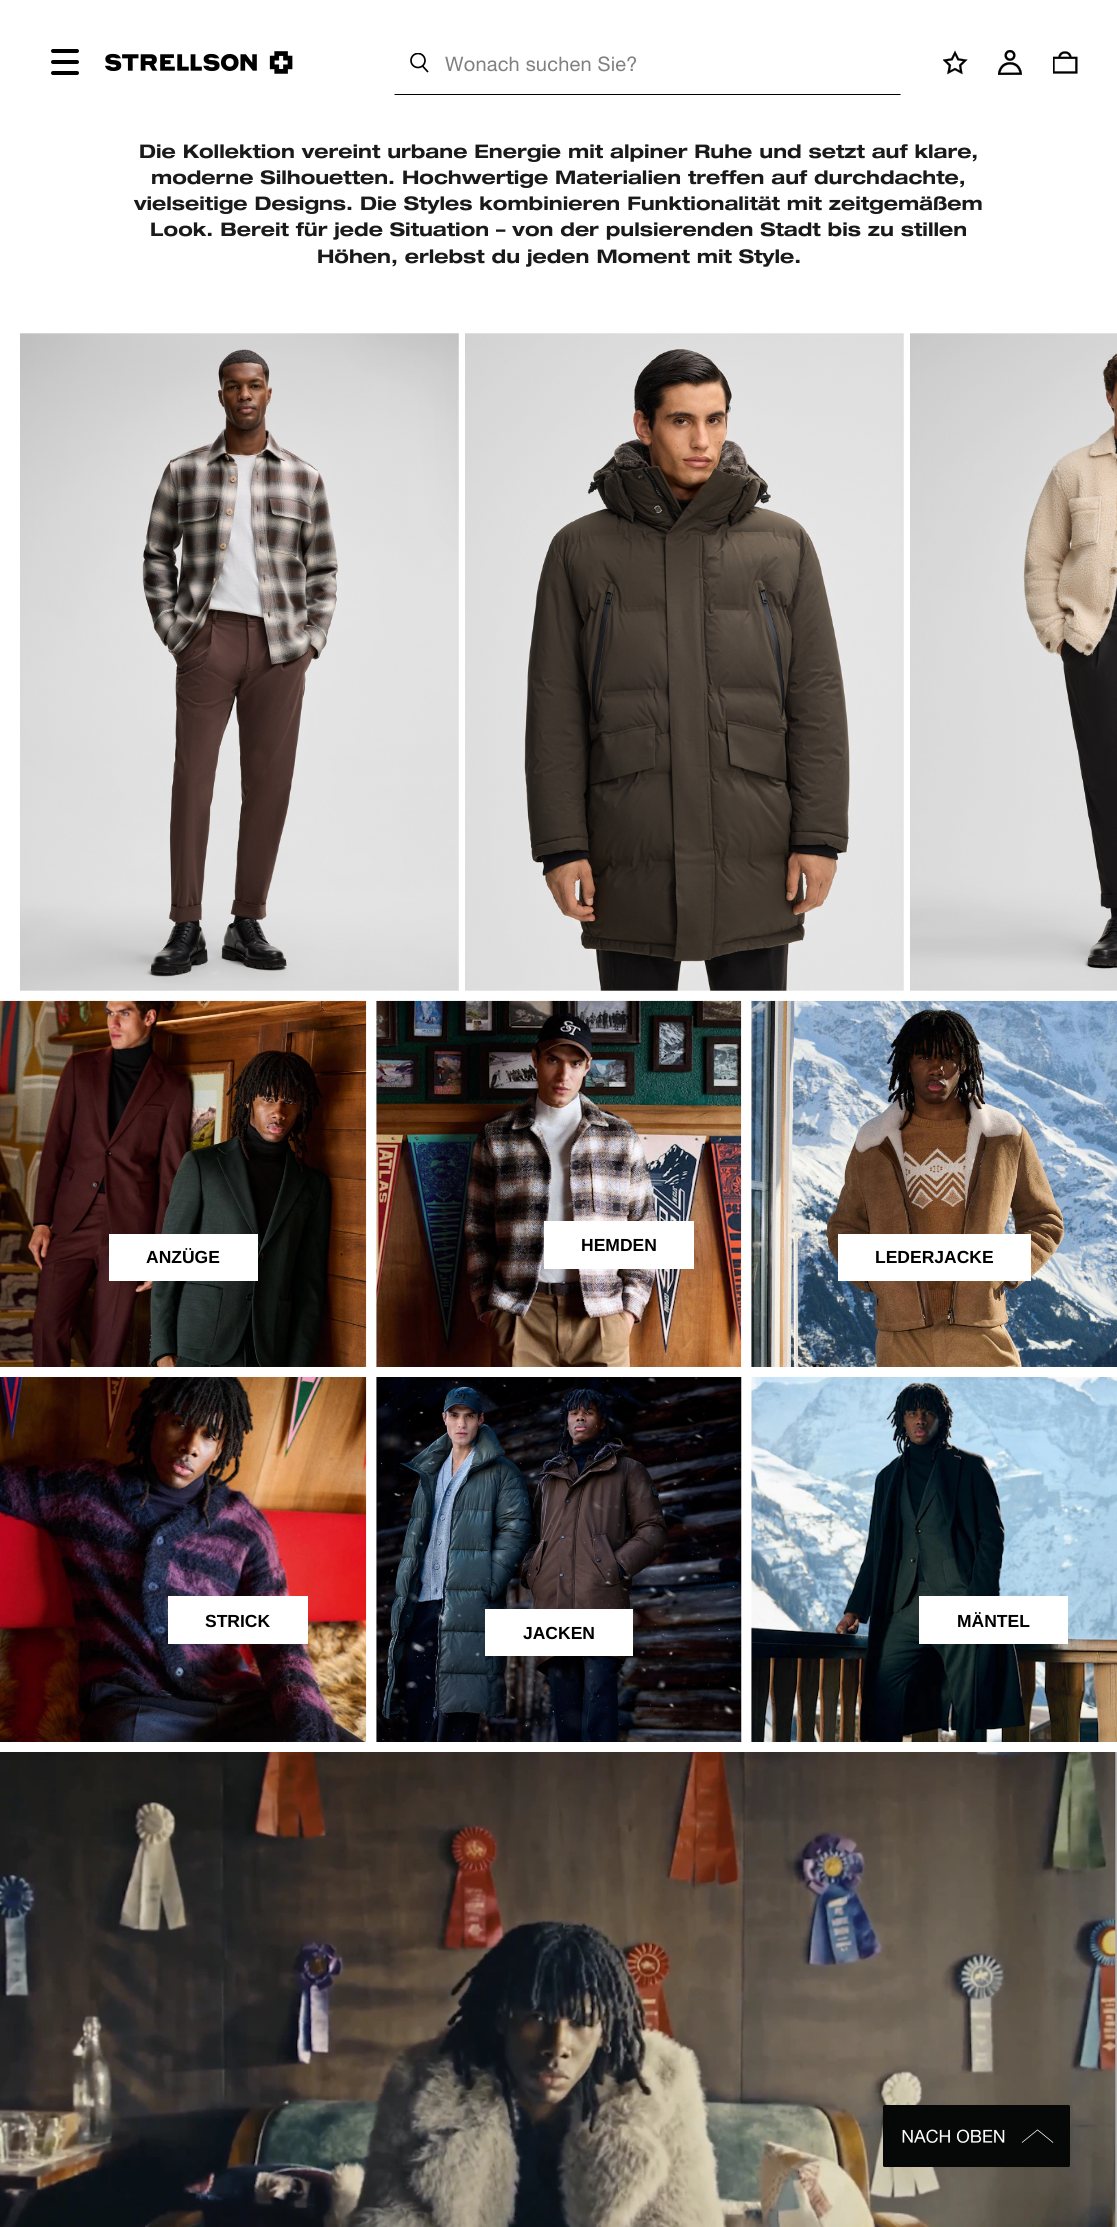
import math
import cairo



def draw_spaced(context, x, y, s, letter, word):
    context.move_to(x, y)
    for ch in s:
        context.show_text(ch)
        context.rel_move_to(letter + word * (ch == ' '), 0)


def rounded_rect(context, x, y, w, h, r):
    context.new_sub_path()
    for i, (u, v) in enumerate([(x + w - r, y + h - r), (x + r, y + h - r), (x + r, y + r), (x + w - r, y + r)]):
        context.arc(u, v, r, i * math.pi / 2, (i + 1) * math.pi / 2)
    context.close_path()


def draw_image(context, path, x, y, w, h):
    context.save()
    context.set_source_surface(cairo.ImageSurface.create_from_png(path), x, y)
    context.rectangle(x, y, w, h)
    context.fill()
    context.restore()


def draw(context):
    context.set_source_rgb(1, 1, 1)
    context.paint()
    context.set_source_rgb(0, 0, 0)
    rounded_rect(context, 51, 49, 28, 4, 2)
    context.fill()
    rounded_rect(context, 51, 60, 28, 4, 2)
    context.fill()
    rounded_rect(context, 51, 71, 28, 4, 2)
    context.fill()
    draw_image(context, "images/1.png", 105, 51, 188, 23)
    context.new_path()
    context.move_to(901, 95)
    context.line_to(394, 95)
    context.line_to(395, 94)
    context.line_to(900, 94)
    context.close_path()
    context.fill()
    context.save()
    context.rectangle(410, 53, 20, 20)
    context.clip()
    context.arc(418, 60.5, 7, 0, 2 * math.pi)
    context.set_line_width(1.7)
    context.stroke()
    context.restore()
    context.new_path()
    context.move_to(422.5, 66)
    context.line_to(428, 72)
    context.set_line_width(1.7)
    context.stroke()
    draw_image(context, "images/2.png", 943, 50, 25, 25)
    draw_image(context, "images/3.png", 998, 50, 25, 25)
    draw_image(context, "images/4.png", 1053, 51, 25, 23)
    draw_image(context, "images/5.png", 20, 333, 439, 658)
    draw_image(context, "images/6.png", 465, 333, 439, 658)
    draw_image(context, "images/7.png", 910, 333, 207, 658)
    draw_image(context, "images/8.png", 376, 1000, 366, 367)
    context.set_source_rgb(1, 1, 1)
    context.rectangle(544, 1221, 150, 48)
    context.fill()
    draw_image(context, "images/9.png", 0, 1000, 367, 367)
    context.rectangle(109, 1234, 149, 47)
    context.fill()
    draw_image(context, "images/10.png", 751, 1000, 366, 367)
    context.rectangle(838, 1234, 193, 47)
    context.fill()
    draw_image(context, "images/11.png", 0, 1377, 367, 365)
    context.rectangle(168, 1596, 140, 48)
    context.fill()
    draw_image(context, "images/12.png", 751, 1377, 366, 365)
    context.rectangle(919, 1596, 149, 48)
    context.fill()
    draw_image(context, "images/13.png", 376, 1377, 366, 365)
    context.rectangle(485, 1609, 148, 47)
    context.fill()
    draw_image(context, "images/14.png", 0, 1752, 1117, 475)
    draw_image(context, "images/15.png", 883, 2105, 187, 62)
    context.select_font_face("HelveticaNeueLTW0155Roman")
    context.set_font_size(20)
    context.set_source_rgb(128 / 255, 128 / 255, 128 / 255)
    draw_spaced(context, 445, 71, "Wonach suchen Sie?", 0.2, 0)
    context.select_font_face("Helvetica Neue", cairo.FontSlant.NORMAL, cairo.FontWeight.BOLD)
    context.set_font_size(18.75)
    context.set_source_rgb(26 / 255, 26 / 255, 26 / 255)
    context.move_to(139, 158)
    context.show_text("Die Kollektion vereint urbane Energie mit alpiner Ruhe und setzt auf klare,")
    context.move_to(151, 184)
    context.show_text("moderne Silhouetten. Hochwertige Materialien treffen auf durchdachte,")
    context.move_to(134, 210)
    context.show_text("vielseitige Designs. Die Styles kombinieren Funktionalität mit zeitgemäßem")
    context.move_to(150, 236)
    context.show_text("Look. Bereit für jede Situation – von der pulsierenden Stadt bis zu stillen")
    context.move_to(317, 263)
    context.show_text("Höhen, erlebst du jeden Moment mit Style.")
    context.select_font_face("Liberation Sans", cairo.FontSlant.NORMAL, cairo.FontWeight.BOLD)
    context.set_font_size(17.5)
    context.set_source_rgb(0, 0, 0)
    context.move_to(581, 1251)
    context.show_text("HEMDEN")
    context.move_to(146, 1263)
    context.show_text("ANZÜGE")
    context.move_to(875, 1263)
    context.show_text("LEDERJACKE")
    context.move_to(205, 1627)
    context.show_text("STRICK")
    context.move_to(957, 1627)
    context.show_text("MÄNTEL")
    context.move_to(523, 1639)
    context.show_text("JACKEN")


surface = cairo.ImageSurface(cairo.Format.RGB24, 1117, 2227)
context = cairo.Context(surface)
options = cairo.FontOptions()
options.set_hint_metrics(cairo.HintMetrics.OFF)
options.set_hint_style(cairo.HintStyle.NONE)
context.set_font_options(options)
context.set_miter_limit(4)
draw(context)
surface.write_to_png("out.png")
